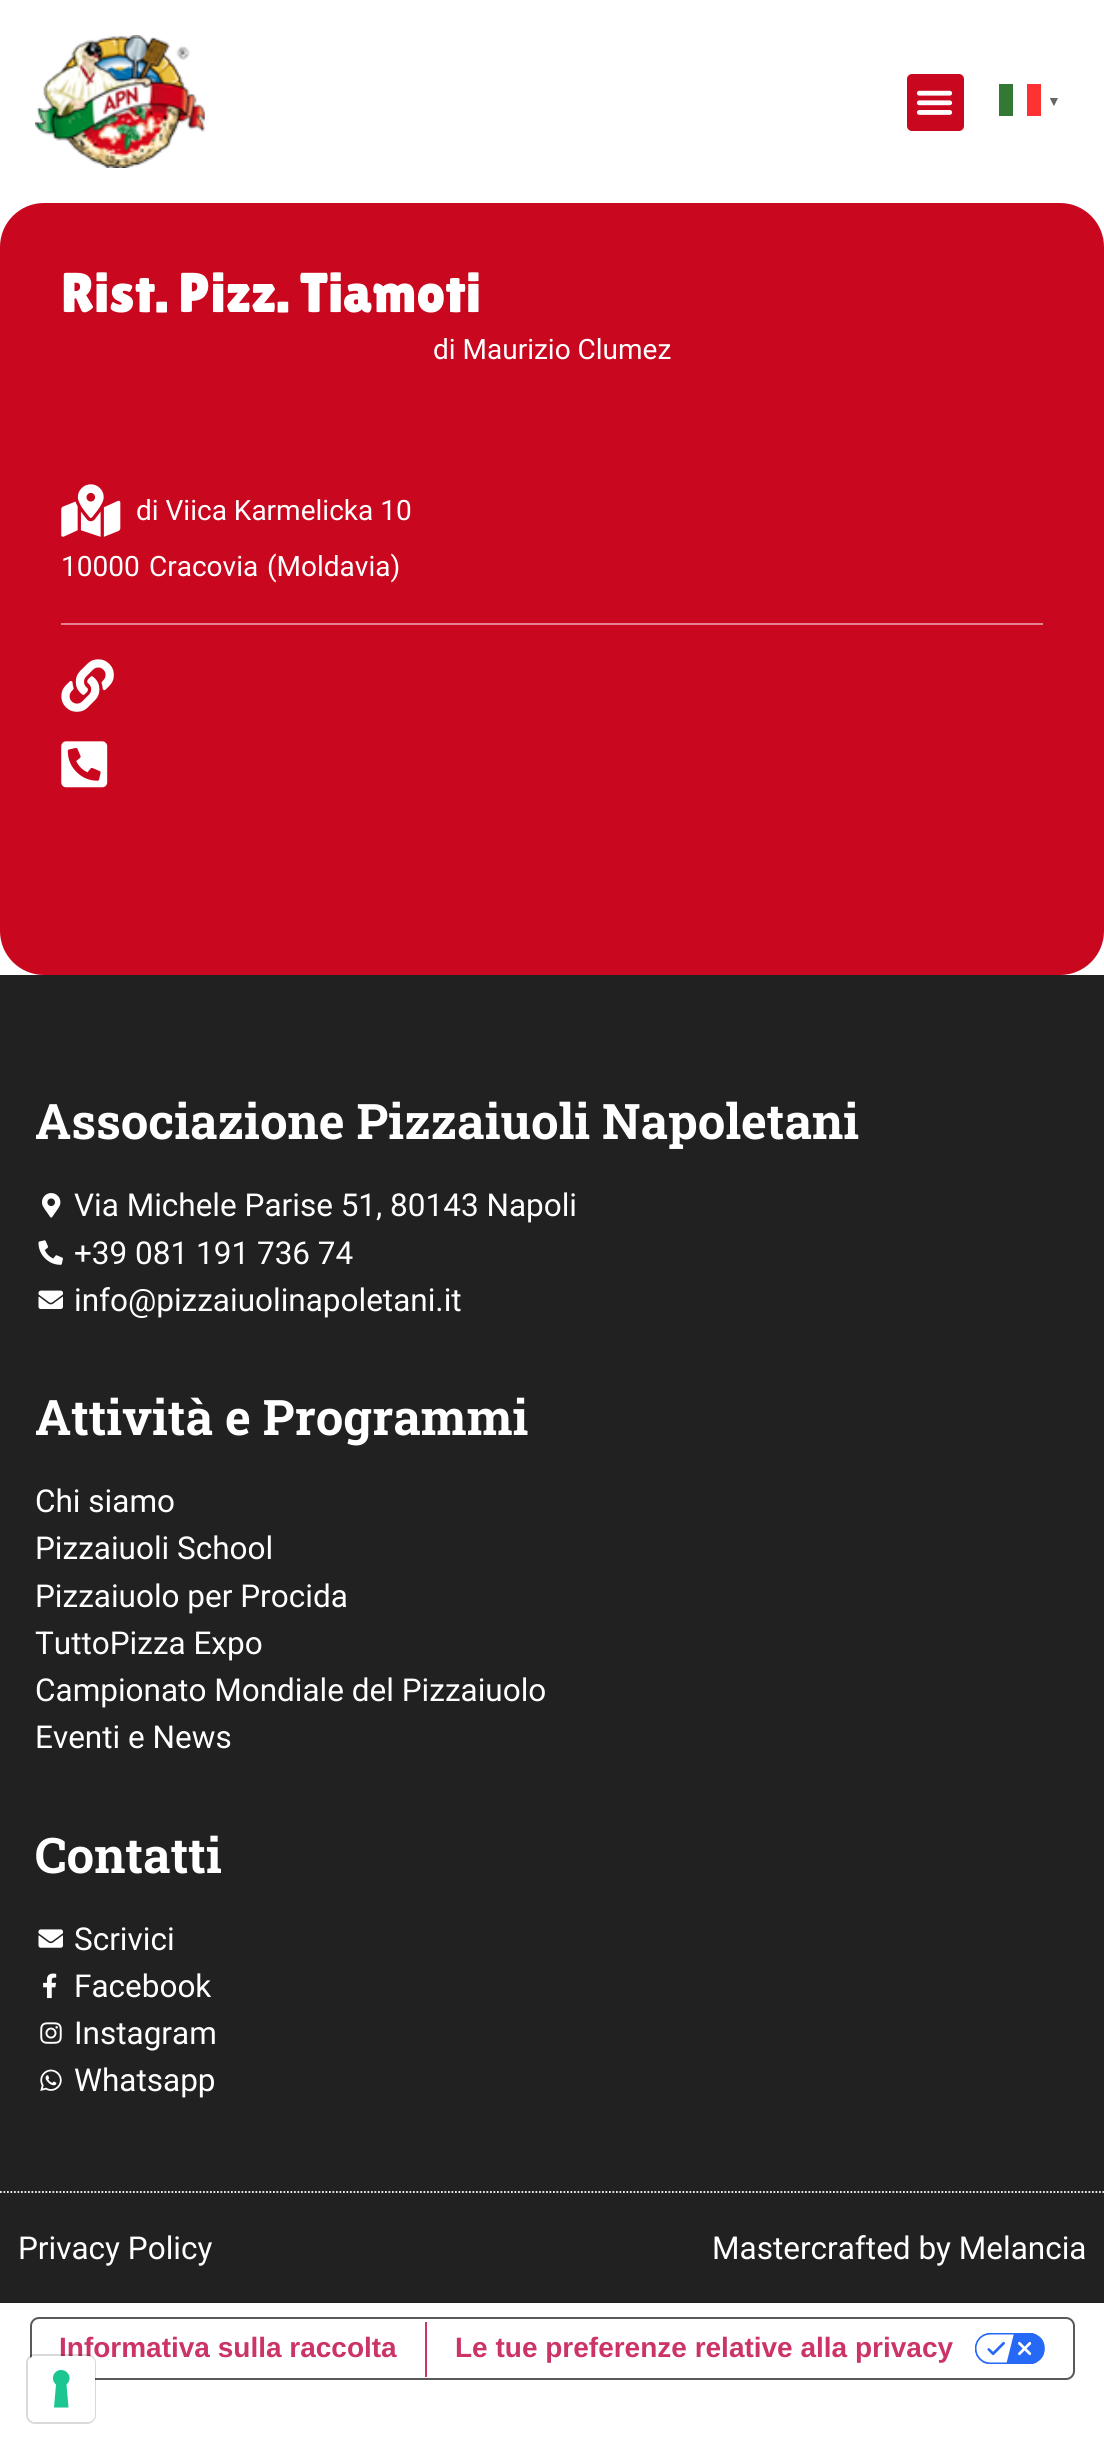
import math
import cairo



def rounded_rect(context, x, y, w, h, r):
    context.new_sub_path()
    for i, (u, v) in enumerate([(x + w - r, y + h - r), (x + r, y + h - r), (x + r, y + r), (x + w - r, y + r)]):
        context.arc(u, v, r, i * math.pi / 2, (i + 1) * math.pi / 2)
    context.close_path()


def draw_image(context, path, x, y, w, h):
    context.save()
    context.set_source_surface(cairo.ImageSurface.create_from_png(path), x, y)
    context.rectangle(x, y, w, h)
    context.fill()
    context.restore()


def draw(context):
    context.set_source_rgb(1, 1, 1)
    context.paint()
    draw_image(context, "images/1.png", 35, 35, 170, 133)
    context.set_source_rgb(201 / 255, 7 / 255, 30 / 255)
    rounded_rect(context, 907, 74, 57, 57, 5)
    context.fill()
    draw_image(context, "images/2.png", 916, 90, 37, 25)
    context.set_source_rgb(51 / 255, 121 / 255, 51 / 255)
    context.rectangle(999, 84, 14, 32)
    context.fill()
    context.set_source_rgb(253 / 255, 51 / 255, 51 / 255)
    context.rectangle(1027, 84, 14, 32)
    context.fill()
    context.set_source_rgb(201 / 255, 7 / 255, 30 / 255)
    rounded_rect(context, 0, 203, 1104, 772, 44)
    context.fill()
    draw_image(context, "images/3.png", 61, 484, 60, 53)
    context.set_source_rgb(228 / 255, 131 / 255, 143 / 255)
    context.rectangle(61, 623, 982, 2)
    context.fill()
    draw_image(context, "images/4.png", 61, 659, 53, 53)
    draw_image(context, "images/5.png", 61, 741, 47, 47)
    context.set_source_rgb(33 / 255, 33 / 255, 33 / 255)
    context.rectangle(0, 975, 1104, 1328)
    context.fill()
    draw_image(context, "images/6.png", 42, 1193, 19, 25)
    draw_image(context, "images/7.png", 38, 1240, 25, 25)
    draw_image(context, "images/8.png", 38, 1290, 25, 19)
    draw_image(context, "images/9.png", 38, 1929, 25, 19)
    draw_image(context, "images/10.png", 43, 1973, 14, 26)
    draw_image(context, "images/11.png", 40, 2022, 22, 22)
    draw_image(context, "images/12.png", 40, 2069, 22, 22)
    context.new_path()
    context.move_to(0, 2192)
    context.line_to(1104, 2192)
    context.set_source_rgb(1, 1, 1)
    context.set_line_width(1.8)
    context.set_dash([1.75, 1.75])
    context.stroke()
    rounded_rect(context, 31, 2318, 1043, 61, 8)
    context.set_source_rgb(89 / 255, 89 / 255, 89 / 255)
    context.set_line_width(2)
    context.set_dash([])
    context.stroke()
    context.set_source_rgb(204 / 255, 51 / 255, 102 / 255)
    context.rectangle(425, 2322, 2, 55)
    context.fill()
    draw_image(context, "images/13.png", 975, 2333, 70, 31)
    context.select_font_face("Liberation Sans", cairo.FontSlant.NORMAL, cairo.FontWeight.BOLD)
    context.set_font_size(14)
    context.set_source_rgb(102 / 255, 102 / 255, 102 / 255)
    context.move_to(1047, 106)
    context.show_text("▼")
    context.select_font_face("Lilita One")
    context.set_font_size(56)
    context.set_source_rgb(1, 1, 1)
    context.move_to(61, 312)
    context.show_text("Rist. Pizz. Tiamoti")
    context.select_font_face("Roboto")
    context.set_font_size(28)
    context.move_to(433, 359)
    context.show_text("di Maurizio Clumez")
    context.move_to(136, 520)
    context.show_text("di Viica Karmelicka 10")
    context.move_to(61, 576)
    context.show_text("10000")
    context.move_to(149, 576)
    context.show_text("Cracovia")
    context.move_to(267, 576)
    context.show_text("(Moldavia)")
    context.select_font_face("Roboto Slab", cairo.FontSlant.NORMAL, cairo.FontWeight.BOLD)
    context.set_font_size(49)
    context.move_to(35, 1139)
    context.show_text("Associazione Pizzaiuoli Napoletani")
    context.select_font_face("Roboto")
    context.set_font_size(31.5)
    context.move_to(74, 1216)
    context.show_text("Via Michele Parise 51, 80143 Napoli")
    context.move_to(74, 1264)
    context.show_text("+39 081 191 736 74")
    context.move_to(74, 1311)
    context.show_text("info@pizzaiuolinapoletani.it")
    context.select_font_face("Roboto Slab", cairo.FontSlant.NORMAL, cairo.FontWeight.BOLD)
    context.set_font_size(49)
    context.move_to(35, 1435)
    context.show_text("Attività e Programmi")
    context.select_font_face("Roboto")
    context.set_font_size(31.5)
    context.move_to(35, 1512)
    context.show_text("Chi siamo")
    context.move_to(35, 1559)
    context.show_text("Pizzaiuoli School")
    context.move_to(35, 1607)
    context.show_text("Pizzaiuolo per Procida")
    context.move_to(35, 1654)
    context.show_text("TuttoPizza Expo")
    context.move_to(35, 1701)
    context.show_text("Campionato Mondiale del Pizzaiuolo")
    context.move_to(35, 1748)
    context.show_text("Eventi e News")
    context.select_font_face("Roboto Slab", cairo.FontSlant.NORMAL, cairo.FontWeight.BOLD)
    context.set_font_size(49)
    context.move_to(35, 1873)
    context.show_text("Contatti")
    context.select_font_face("Roboto")
    context.set_font_size(31.5)
    context.move_to(74, 1950)
    context.show_text("Scrivici")
    context.move_to(74, 1997)
    context.show_text("Facebook")
    context.move_to(74, 2044)
    context.show_text("Instagram")
    context.move_to(74, 2091)
    context.show_text("Whatsapp")
    context.move_to(18, 2259)
    context.show_text("Privacy Policy")
    context.move_to(712, 2259)
    context.show_text("Mastercrafted by Melancia")
    context.select_font_face("Liberation Sans", cairo.FontSlant.NORMAL, cairo.FontWeight.BOLD)
    context.set_font_size(28)
    context.set_source_rgb(204 / 255, 51 / 255, 102 / 255)
    context.move_to(59, 2357)
    context.show_text("Informativa sulla raccolta")
    context.move_to(455, 2357)
    context.show_text("Le tue preferenze relative alla privacy")
    rounded_rect(context, 27, 2355, 68, 68, 8)
    context.set_source_rgba(0, 0, 0, 0.15)
    context.stroke()
    context.set_source_rgb(1, 1, 1)
    rounded_rect(context, 28, 2356, 67, 66, 7)
    context.fill()
    context.set_source_rgb(28 / 255, 198 / 255, 145 / 255)
    context.set_fill_rule(cairo.FillRule.EVEN_ODD)
    context.new_path()
    context.move_to(61, 2370)
    context.curve_to(69, 2370, 72.5, 2379.5, 66.5, 2384.5)
    context.line_to(68.5, 2407.5)
    context.line_to(54, 2407.5)
    context.line_to(56, 2384.5)
    context.curve_to(50, 2379.5, 53.5, 2370, 61, 2370)
    context.close_path()
    context.fill()


surface = cairo.ImageSurface(cairo.Format.RGB24, 1104, 2449)
context = cairo.Context(surface)
options = cairo.FontOptions()
options.set_hint_metrics(cairo.HintMetrics.OFF)
options.set_hint_style(cairo.HintStyle.NONE)
context.set_font_options(options)
context.set_miter_limit(4)
draw(context)
surface.write_to_png("out.png")
